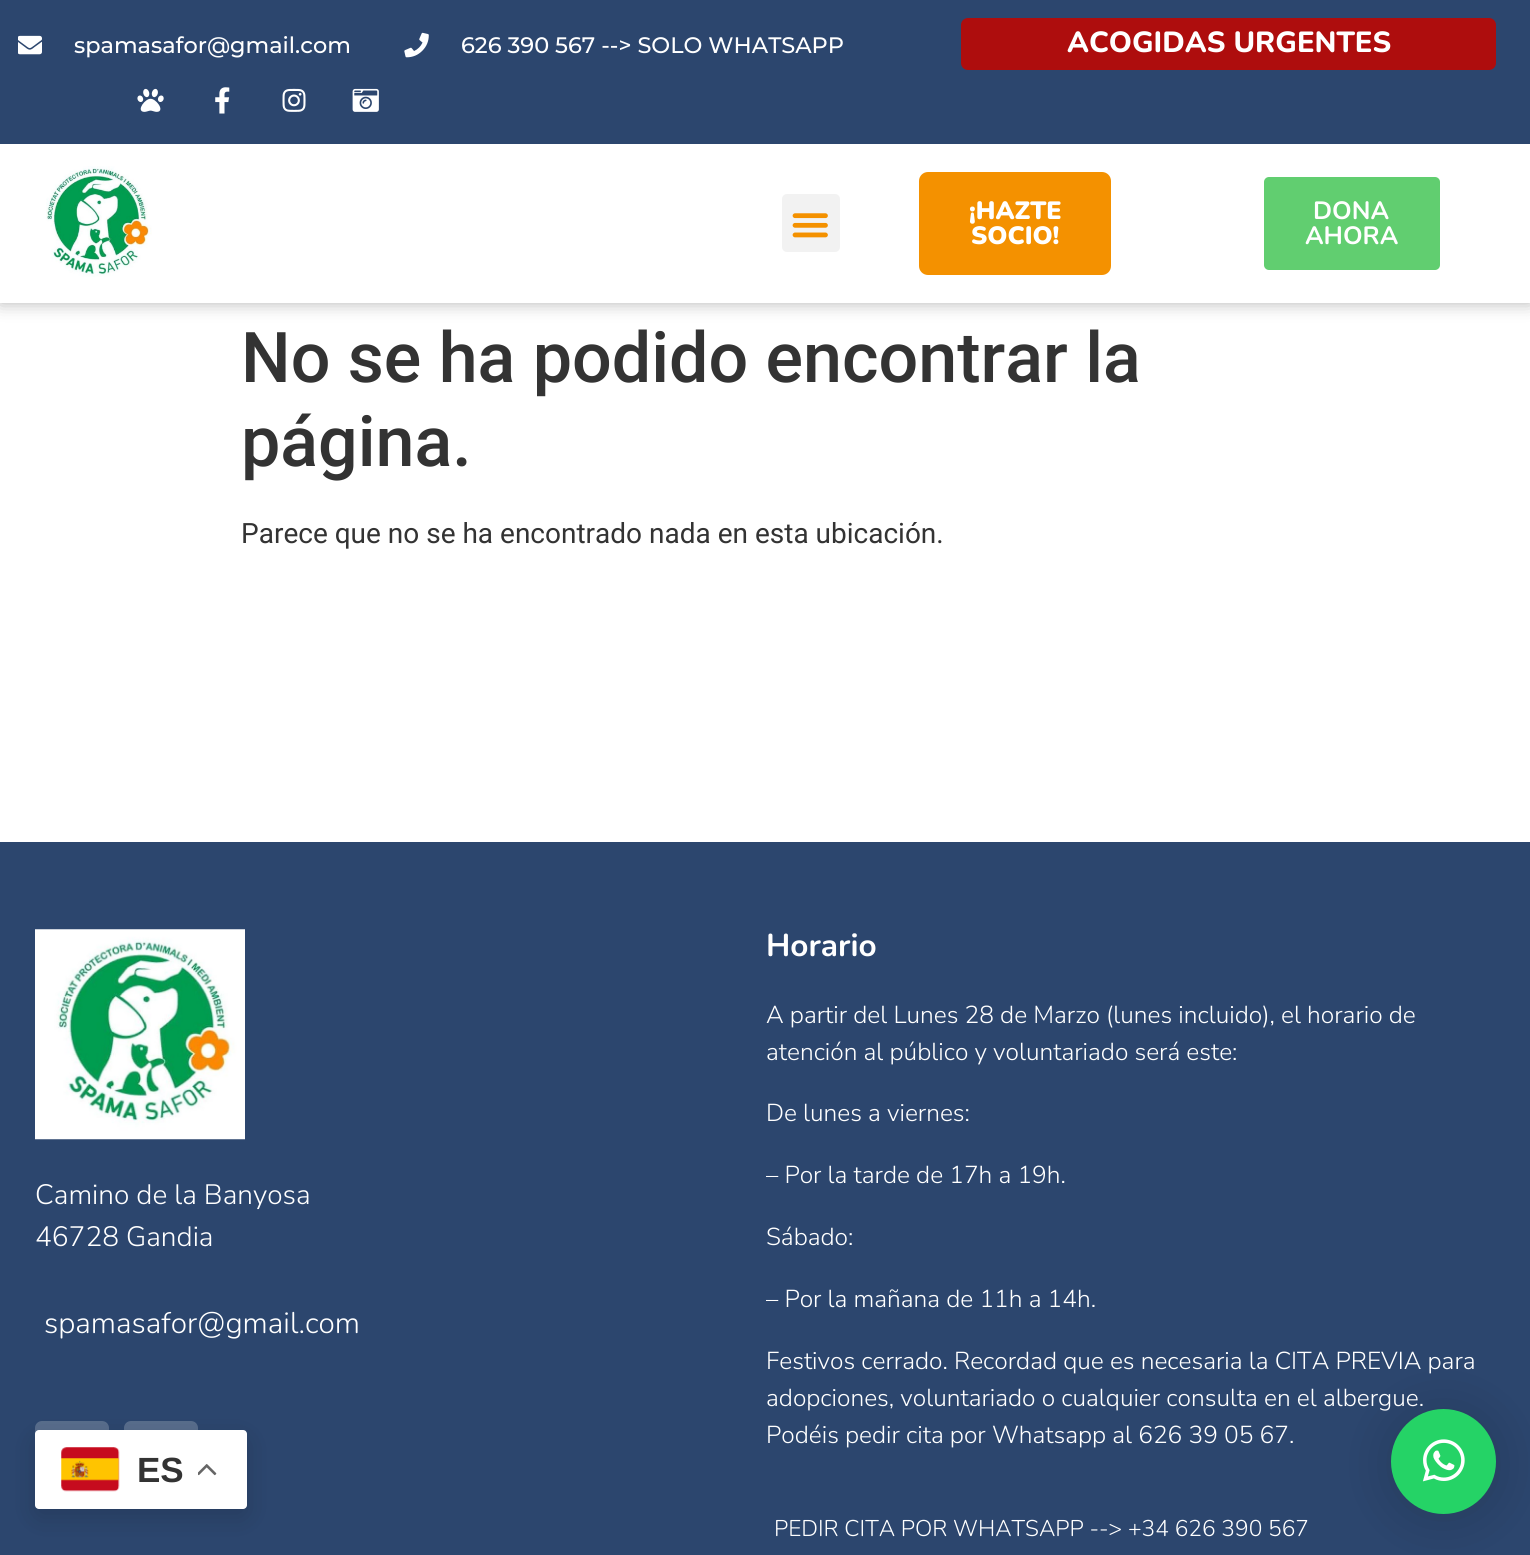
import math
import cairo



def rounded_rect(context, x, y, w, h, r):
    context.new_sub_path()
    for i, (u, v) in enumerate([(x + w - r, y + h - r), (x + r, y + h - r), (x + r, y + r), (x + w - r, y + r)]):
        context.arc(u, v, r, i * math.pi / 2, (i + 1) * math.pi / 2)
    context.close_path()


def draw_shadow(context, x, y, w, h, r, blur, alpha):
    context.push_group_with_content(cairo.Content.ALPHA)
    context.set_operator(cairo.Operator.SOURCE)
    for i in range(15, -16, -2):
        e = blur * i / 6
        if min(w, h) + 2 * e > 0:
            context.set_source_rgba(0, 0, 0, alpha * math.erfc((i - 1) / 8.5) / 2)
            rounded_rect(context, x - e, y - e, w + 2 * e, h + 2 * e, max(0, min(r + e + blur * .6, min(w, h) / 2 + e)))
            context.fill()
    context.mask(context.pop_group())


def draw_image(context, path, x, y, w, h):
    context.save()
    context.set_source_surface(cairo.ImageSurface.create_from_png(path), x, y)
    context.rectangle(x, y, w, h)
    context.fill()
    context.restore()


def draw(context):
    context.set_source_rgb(1, 1, 1)
    context.paint()
    context.set_source_rgb(0, 0, 0)
    draw_shadow(context, 0, 144, 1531, 159, 0, 9, 0.29)
    context.set_source_rgb(44 / 255, 70 / 255, 110 / 255)
    context.rectangle(0, 0, 1530, 144)
    context.fill()
    draw_image(context, "images/1.png", 18, 35, 24, 20)
    draw_image(context, "images/2.png", 404, 32, 25, 26)
    context.set_source_rgb(174 / 255, 13 / 255, 13 / 255)
    rounded_rect(context, 961, 18, 535, 52, 7)
    context.fill()
    draw_image(context, "images/3.png", 137, 88, 27, 24)
    draw_image(context, "images/4.png", 215, 87, 15, 27)
    draw_image(context, "images/5.png", 282, 88, 24, 24)
    draw_image(context, "images/6.png", 352, 88, 27, 24)
    context.set_source_rgb(1, 1, 1)
    context.rectangle(0, 144, 1530, 159)
    context.fill()
    draw_image(context, "images/7.png", 46, 166, 106, 111)
    context.set_source_rgb(242 / 255, 242 / 255, 242 / 255)
    rounded_rect(context, 782, 194, 58, 58, 5)
    context.fill()
    draw_image(context, "images/8.png", 792, 213, 36, 25)
    context.set_source_rgb(244 / 255, 145 / 255, 0)
    rounded_rect(context, 919, 172, 192, 103, 9)
    context.fill()
    context.set_source_rgb(97 / 255, 206 / 255, 112 / 255)
    rounded_rect(context, 1264, 177, 176, 93, 5)
    context.fill()
    context.set_source_rgb(44 / 255, 70 / 255, 110 / 255)
    context.rectangle(0, 842, 1530, 713)
    context.fill()
    draw_image(context, "images/9.png", 35, 929, 210, 211)
    context.set_source_rgb(88 / 255, 109 / 255, 140 / 255)
    rounded_rect(context, 35, 1421, 74, 72, 7)
    context.fill()
    rounded_rect(context, 124, 1421, 74, 72, 7)
    context.fill()
    context.set_source_rgb(0, 0, 0)
    draw_shadow(context, 35, 1439, 212, 78, 4, 13, 0.15)
    context.set_source_rgb(1, 1, 1)
    rounded_rect(context, 35, 1430, 212, 79, 4)
    context.fill()
    draw_image(context, "images/10.png", 61, 1447, 59, 45)
    draw_image(context, "images/11.png", 198, 1464, 19, 12)
    context.set_source_rgb(0, 0, 0)
    draw_shadow(context, 1391, 1412, 105, 105, 52.5, 28, 0.16)
    context.select_font_face("Montserrat Medium")
    context.set_font_size(22.4)
    context.set_source_rgb(1, 1, 1)
    context.move_to(74, 53)
    context.show_text("spamasafor@gmail.com")
    context.move_to(461, 53)
    context.show_text("626 390 567 --> SOLO WHATSAPP")
    context.select_font_face("Nunito ExtraBold")
    context.set_font_size(29.1)
    context.move_to(1067, 52)
    context.show_text("ACOGIDAS URGENTES")
    context.select_font_face("Nunito Black")
    context.set_font_size(25)
    context.move_to(969, 219)
    context.show_text("¡HAZTE")
    context.move_to(971, 244)
    context.show_text("SOCIO!")
    context.select_font_face("Nunito", cairo.FontSlant.NORMAL, cairo.FontWeight.BOLD)
    context.move_to(1313, 219)
    context.show_text("DONA")
    context.move_to(1305, 244)
    context.show_text("AHORA")
    context.select_font_face("Roboto Medium")
    context.set_font_size(70)
    context.set_source_rgb(51 / 255, 51 / 255, 51 / 255)
    context.move_to(241, 382)
    context.show_text("No se ha podido encontrar la")
    context.move_to(241, 466)
    context.show_text("página.")
    context.select_font_face("Roboto")
    context.set_font_size(28)
    context.move_to(241, 543)
    context.show_text("Parece que no se ha encontrado nada en esta ubicación.")
    context.select_font_face("Nunito Sans Light")
    context.set_source_rgb(1, 1, 1)
    context.move_to(35, 1204)
    context.show_text("Camino de la Banyosa")
    context.move_to(35, 1246)
    context.show_text("46728 Gandia")
    context.select_font_face("Nunito Light")
    context.set_font_size(29.75)
    context.move_to(44, 1333)
    context.show_text("spamasafor@gmail.com")
    context.select_font_face("Nunito", cairo.FontSlant.NORMAL, cairo.FontWeight.BOLD)
    context.set_font_size(31.5)
    context.move_to(766, 956)
    context.show_text("Horario")
    context.select_font_face("Nunito Sans Light")
    context.set_font_size(24.5)
    context.move_to(766, 1023)
    context.show_text("A partir del Lunes 28 de Marzo (lunes incluido), el horario de")
    context.move_to(766, 1060)
    context.show_text("atención al público y voluntariado será este:")
    context.move_to(766, 1121)
    context.show_text("De lunes a viernes:")
    context.move_to(766, 1183)
    context.show_text("– Por la tarde de 17h a 19h.")
    context.move_to(766, 1245)
    context.show_text("Sábado:")
    context.move_to(766, 1307)
    context.show_text("– Por la mañana de 11h a 14h.")
    context.move_to(766, 1369)
    context.show_text("Festivos cerrado. Recordad que es necesaria la CITA PREVIA para")
    context.move_to(766, 1406)
    context.show_text("adopciones, voluntariado o cualquier consulta en el albergue.")
    context.move_to(766, 1443)
    context.show_text("Podéis pedir cita por Whatsapp al 626 39 05 67.")
    context.select_font_face("Nunito Light")
    context.set_font_size(22.75)
    context.move_to(774, 1536)
    context.show_text("PEDIR CITA POR WHATSAPP --> +34 626 390 567")
    context.select_font_face("Liberation Sans", cairo.FontSlant.NORMAL, cairo.FontWeight.BOLD)
    context.set_font_size(35)
    context.set_source_rgb(51 / 255, 51 / 255, 51 / 255)
    context.move_to(137, 1482)
    context.show_text("ES")
    context.set_source_rgb(37 / 255, 211 / 255, 102 / 255)
    context.new_path()
    context.arc(1443.5, 1461.5, 52.5, 0, 2 * math.pi)
    context.fill()
    draw_image(context, "images/12.png", 1422, 1439, 43, 43)


surface = cairo.ImageSurface(cairo.Format.RGB24, 1530, 1555)
context = cairo.Context(surface)
options = cairo.FontOptions()
options.set_hint_metrics(cairo.HintMetrics.OFF)
options.set_hint_style(cairo.HintStyle.NONE)
context.set_font_options(options)
context.set_miter_limit(4)
draw(context)
surface.write_to_png("out.png")
